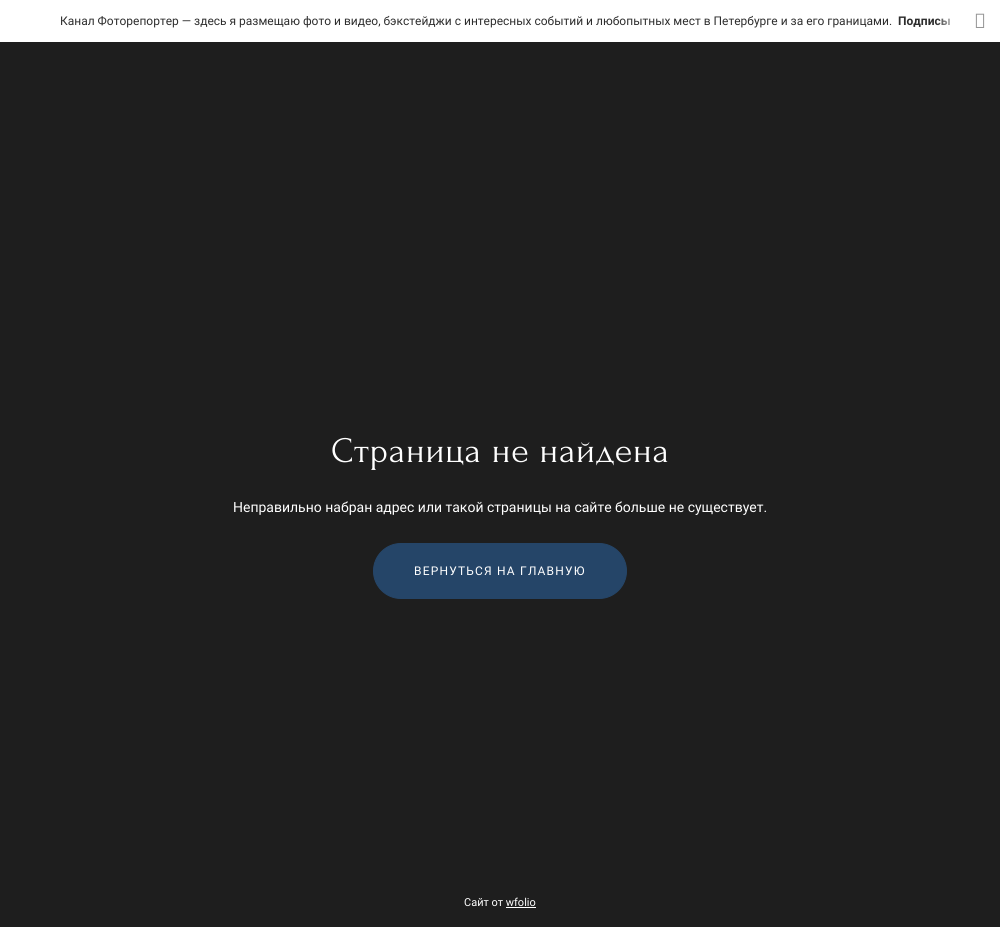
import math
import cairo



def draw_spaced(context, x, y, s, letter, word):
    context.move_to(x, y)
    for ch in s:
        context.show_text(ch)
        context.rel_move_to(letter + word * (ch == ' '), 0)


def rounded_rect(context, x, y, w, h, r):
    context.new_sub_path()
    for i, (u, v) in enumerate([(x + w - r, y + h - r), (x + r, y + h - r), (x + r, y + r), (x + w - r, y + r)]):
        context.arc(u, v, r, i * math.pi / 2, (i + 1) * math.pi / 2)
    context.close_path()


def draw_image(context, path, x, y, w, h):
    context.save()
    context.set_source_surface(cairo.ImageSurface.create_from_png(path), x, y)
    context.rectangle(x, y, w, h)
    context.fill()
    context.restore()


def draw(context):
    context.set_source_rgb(30 / 255, 30 / 255, 30 / 255)
    context.paint()
    context.set_source_rgb(1, 1, 1)
    context.rectangle(0, 0, 1000, 42)
    context.fill()
    draw_image(context, "images/1.png", 975, 13, 10, 15)
    context.set_source_rgb(37 / 255, 69 / 255, 104 / 255)
    rounded_rect(context, 373.5, 543.5, 253, 55, 27.5)
    context.fill_preserve()
    context.set_line_width(1)
    context.stroke()
    context.set_source_rgb(1, 1, 1)
    context.rectangle(506, 907, 30, 1)
    context.fill()
    context.select_font_face("Roboto")
    context.set_font_size(12)
    context.set_source_rgb(45 / 255, 45 / 255, 45 / 255)
    context.move_to(60, 25)
    context.show_text("Канал Фоторепортер — здесь я размещаю фото и видео, бэкстейджи с интересных событий и любопытных мест в Петербурге и за его границами.")
    context.select_font_face("Roboto", cairo.FontSlant.NORMAL, cairo.FontWeight.BOLD)
    context.move_to(898, 25)
    context.show_text("Подписы")
    gradient = cairo.LinearGradient(936, 21, 960, 21)
    gradient.add_color_stop_rgba(0, 1, 1, 1, 0)
    gradient.add_color_stop_rgba(1, 1, 1, 1, 1)
    context.set_source(gradient)
    context.rectangle(937, 18, 13, 7)
    context.fill()
    context.select_font_face("Forum")
    context.set_font_size(36)
    context.set_source_rgb(1, 1, 1)
    draw_spaced(context, 331, 462, "Страница не найдена", 0.75, 0)
    context.select_font_face("Roboto")
    context.set_font_size(14)
    context.move_to(233, 512)
    context.show_text("Неправильно набран адрес или такой страницы на сайте больше не существует.")
    context.set_font_size(12)
    draw_spaced(context, 414, 575, "ВЕРНУТЬСЯ НА ГЛАВНУЮ", 1.2, 0)
    context.set_font_size(11)
    context.move_to(464, 906)
    context.show_text("Сайт от wfolio")


surface = cairo.ImageSurface(cairo.Format.RGB24, 1000, 927)
context = cairo.Context(surface)
options = cairo.FontOptions()
options.set_hint_metrics(cairo.HintMetrics.OFF)
options.set_hint_style(cairo.HintStyle.NONE)
context.set_font_options(options)
context.set_miter_limit(4)
draw(context)
surface.write_to_png("out.png")
